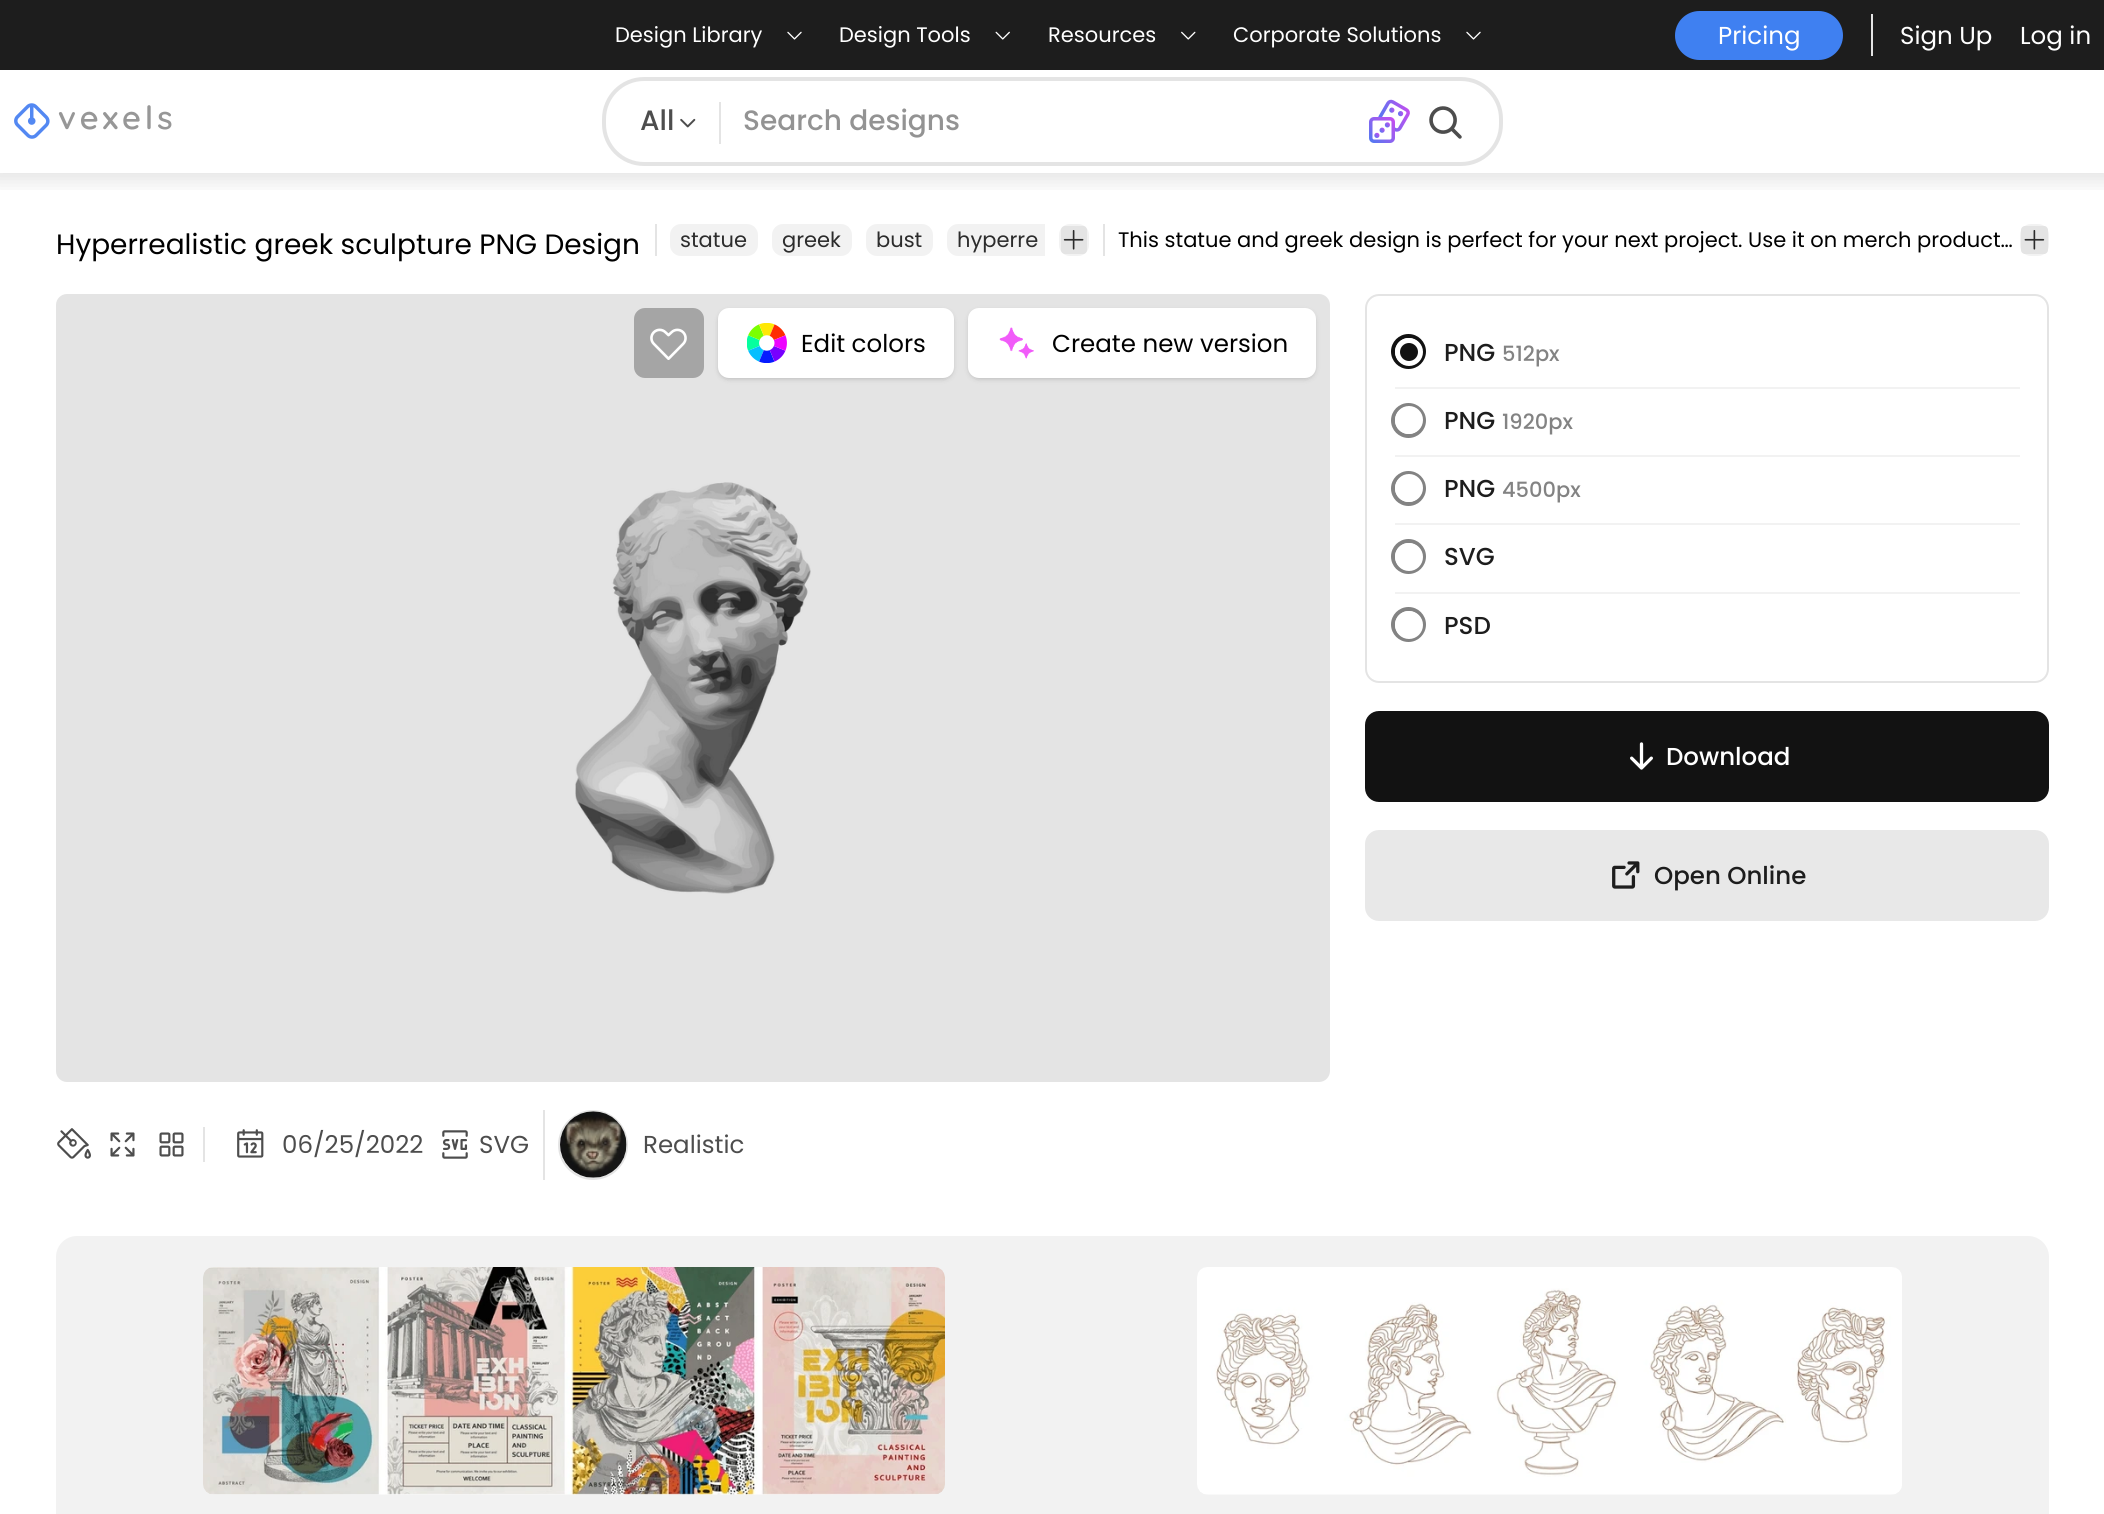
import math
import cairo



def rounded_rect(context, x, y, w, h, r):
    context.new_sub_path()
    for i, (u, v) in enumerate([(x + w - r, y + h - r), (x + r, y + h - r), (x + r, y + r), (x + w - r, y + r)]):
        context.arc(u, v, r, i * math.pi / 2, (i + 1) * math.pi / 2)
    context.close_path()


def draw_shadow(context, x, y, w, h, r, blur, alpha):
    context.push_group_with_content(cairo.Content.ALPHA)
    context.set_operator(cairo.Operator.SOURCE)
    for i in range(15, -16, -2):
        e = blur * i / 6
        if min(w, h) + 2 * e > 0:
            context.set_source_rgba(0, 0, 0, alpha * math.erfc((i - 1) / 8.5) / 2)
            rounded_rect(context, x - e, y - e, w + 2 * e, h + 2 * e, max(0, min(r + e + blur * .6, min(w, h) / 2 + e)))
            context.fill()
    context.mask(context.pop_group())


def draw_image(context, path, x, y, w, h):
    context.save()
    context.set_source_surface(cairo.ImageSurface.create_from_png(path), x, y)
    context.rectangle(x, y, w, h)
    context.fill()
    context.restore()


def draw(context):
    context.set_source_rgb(1, 1, 1)
    context.paint()
    context.save()
    context.rectangle(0, 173, 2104, 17)
    context.clip()
    context.set_source_rgb(0, 0, 0)
    draw_shadow(context, -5, -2, 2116, 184, 0, 9.5, 0.1)
    context.restore()
    context.set_source_rgb(29 / 255, 29 / 255, 29 / 255)
    context.rectangle(0, 0, 2104, 70)
    context.fill()
    draw_image(context, "images/1.png", 787, 31, 15, 9)
    draw_image(context, "images/2.png", 995, 31, 15, 9)
    draw_image(context, "images/3.png", 1181, 31, 15, 9)
    draw_image(context, "images/1.png", 1466, 31, 15, 9)
    context.set_source_rgb(228 / 255, 228 / 255, 228 / 255)
    context.rectangle(1871, 14, 2, 42)
    context.fill()
    context.set_source_rgb(63 / 255, 128 / 255, 241 / 255)
    rounded_rect(context, 1675, 11, 168, 49, 24.5)
    context.fill()
    draw_image(context, "images/4.png", 14, 103, 158, 36)
    rounded_rect(context, 604, 79, 897, 85, 40)
    context.set_source_rgb(228 / 255, 228 / 255, 228 / 255)
    context.set_line_width(4)
    context.stroke()
    context.rectangle(719, 102, 2, 42)
    context.fill()
    draw_image(context, "images/5.png", 680, 118, 16, 10)
    draw_image(context, "images/6.png", 1369, 99, 41, 44)
    draw_image(context, "images/7.png", 1429, 106, 33, 33)
    context.rectangle(655, 224, 2, 32)
    context.fill()
    context.set_source_rgb(242 / 255, 242 / 255, 242 / 255)
    rounded_rect(context, 670, 224, 88, 32, 11)
    context.fill()
    rounded_rect(context, 772, 224, 80, 32, 11)
    context.fill()
    rounded_rect(context, 866, 224, 67, 32, 11)
    context.fill()
    context.new_path()
    context.move_to(958, 224)
    context.line_to(1045, 224)
    context.line_to(1045, 256)
    context.line_to(958, 256)
    context.curve_to(952, 256, 947, 251, 947, 245)
    context.line_to(947, 235)
    context.curve_to(947, 229, 952, 224, 958, 224)
    context.close_path()
    context.fill()
    rounded_rect(context, 1059, 224, 30, 32, 11)
    context.fill()
    context.set_source_rgb(228 / 255, 228 / 255, 228 / 255)
    rounded_rect(context, 1061, 226, 26, 28, 4)
    context.fill()
    draw_image(context, "images/8.png", 1063, 230, 21, 20)
    context.rectangle(1103, 224, 2, 32)
    context.fill()
    context.set_source_rgb(242 / 255, 242 / 255, 242 / 255)
    rounded_rect(context, 2020, 224, 29, 32, 11)
    context.fill()
    context.set_source_rgb(228 / 255, 228 / 255, 228 / 255)
    rounded_rect(context, 2021, 226, 27, 28, 4)
    context.fill()
    draw_image(context, "images/9.png", 2024, 230, 21, 20)
    rounded_rect(context, 56, 294, 1274, 788, 11)
    context.fill()
    context.set_source_rgb(165 / 255, 165 / 255, 165 / 255)
    rounded_rect(context, 634, 308, 70, 70, 11)
    context.fill()
    draw_image(context, "images/10.png", 650, 328, 37, 32)
    context.set_source_rgb(0, 0, 0)
    draw_shadow(context, 719, 312, 233, 66, 9, 2, 0.1)
    draw_shadow(context, 718, 310, 236, 70, 11, 2.5, 0.1)
    context.set_source_rgb(1, 1, 1)
    rounded_rect(context, 718, 308, 236, 70, 11)
    context.fill()
    draw_image(context, "images/11.png", 747, 323, 40, 40)
    context.set_source_rgb(0, 0, 0)
    draw_shadow(context, 970, 312, 344, 66, 9, 2, 0.1)
    draw_shadow(context, 968, 310, 348, 70, 11, 2.5, 0.1)
    context.set_source_rgb(1, 1, 1)
    rounded_rect(context, 968, 308, 348, 70, 11)
    context.fill()
    draw_image(context, "images/12.png", 999, 327, 35, 32)
    draw_image(context, "images/13.png", 575, 482, 236, 412)
    rounded_rect(context, 1366, 295, 682, 387, 13)
    context.set_source_rgb(228 / 255, 228 / 255, 228 / 255)
    context.set_line_width(2)
    context.stroke()
    context.set_source_rgb(242 / 255, 242 / 255, 242 / 255)
    context.rectangle(1395, 387, 625, 2)
    context.fill()
    context.arc(1408.5, 351.5, 15.5, 0, 2 * math.pi)
    context.set_source_rgb(18 / 255, 18 / 255, 18 / 255)
    context.set_line_width(4)
    context.stroke()
    context.arc(1409, 352, 11.5, 0, 2 * math.pi)
    context.fill_preserve()
    context.set_source_rgb(1, 1, 1)
    context.set_line_width(5)
    context.stroke()
    context.set_source_rgb(242 / 255, 242 / 255, 242 / 255)
    context.rectangle(1395, 455, 625, 2)
    context.fill()
    context.arc(1408.5, 420.5, 15.5, 0, 2 * math.pi)
    context.set_source_rgb(131 / 255, 131 / 255, 131 / 255)
    context.set_line_width(4)
    context.stroke()
    context.set_source_rgb(1, 1, 1)
    context.arc(1409, 420, 11.5, 0, 2 * math.pi)
    context.fill_preserve()
    context.set_line_width(5)
    context.stroke()
    context.set_source_rgb(242 / 255, 242 / 255, 242 / 255)
    context.rectangle(1395, 523, 625, 2)
    context.fill()
    context.arc(1408.5, 488.5, 15.5, 0, 2 * math.pi)
    context.set_source_rgb(131 / 255, 131 / 255, 131 / 255)
    context.set_line_width(4)
    context.stroke()
    context.set_source_rgb(1, 1, 1)
    context.arc(1409, 488, 11.5, 0, 2 * math.pi)
    context.fill_preserve()
    context.set_line_width(5)
    context.stroke()
    context.set_source_rgb(242 / 255, 242 / 255, 242 / 255)
    context.rectangle(1395, 592, 625, 2)
    context.fill()
    context.arc(1408.5, 556.5, 15.5, 0, 2 * math.pi)
    context.set_source_rgb(131 / 255, 131 / 255, 131 / 255)
    context.set_line_width(4)
    context.stroke()
    context.set_source_rgb(1, 1, 1)
    context.arc(1409, 557, 11.5, 0, 2 * math.pi)
    context.fill_preserve()
    context.set_line_width(5)
    context.stroke()
    context.arc(1408.5, 624.5, 15.5, 0, 2 * math.pi)
    context.set_source_rgb(131 / 255, 131 / 255, 131 / 255)
    context.set_line_width(4)
    context.stroke()
    context.set_source_rgb(1, 1, 1)
    context.arc(1409, 625, 11.5, 0, 2 * math.pi)
    context.fill_preserve()
    context.set_line_width(5)
    context.stroke()
    context.set_source_rgb(18 / 255, 18 / 255, 18 / 255)
    rounded_rect(context, 1365, 711, 684, 91, 14)
    context.fill()
    draw_image(context, "images/14.png", 1630, 742, 23, 28)
    context.set_source_rgb(232 / 255, 232 / 255, 232 / 255)
    rounded_rect(context, 1365, 830, 684, 91, 14)
    context.fill()
    draw_image(context, "images/15.png", 1612, 861, 28, 28)
    context.set_source_rgb(228 / 255, 228 / 255, 228 / 255)
    context.rectangle(203, 1127, 2, 35)
    context.fill()
    draw_image(context, "images/16.png", 57, 1128, 34, 31)
    draw_image(context, "images/17.png", 110, 1132, 25, 25)
    draw_image(context, "images/18.png", 159, 1132, 25, 25)
    draw_image(context, "images/19.png", 237, 1129, 27, 29)
    draw_image(context, "images/20.png", 442, 1130, 26, 29)
    context.rectangle(543, 1110, 2, 70)
    context.fill()
    context.arc(593, 1145, 34, 0, 2 * math.pi)
    context.set_line_width(2)
    context.stroke()
    draw_image(context, "images/21.png", 560, 1111, 67, 67)
    context.set_source_rgb(242 / 255, 242 / 255, 242 / 255)
    rounded_rect(context, 56, 1236, 1993, 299, 21)
    context.fill()
    draw_image(context, "images/22.png", 203, 1267, 742, 228)
    draw_image(context, "images/23.png", 1197, 1267, 705, 228)
    context.select_font_face("Poppins")
    context.set_font_size(21)
    context.set_source_rgb(1, 1, 1)
    context.move_to(615, 42)
    context.show_text("Design Library")
    context.move_to(839, 42)
    context.show_text("Design Tools")
    context.move_to(1048, 42)
    context.show_text("Resources")
    context.move_to(1233, 42)
    context.show_text("Corporate Solutions")
    context.set_font_size(24.5)
    context.move_to(1718, 44)
    context.show_text("Pricing")
    context.move_to(1900, 44)
    context.show_text("Sign Up")
    context.move_to(2020, 44)
    context.show_text("Log in")
    context.select_font_face("Poppins Medium")
    context.set_font_size(28)
    context.set_source_rgb(77 / 255, 77 / 255, 77 / 255)
    context.move_to(640, 130)
    context.show_text("All")
    context.set_source_rgb(147 / 255, 147 / 255, 147 / 255)
    context.move_to(743, 130)
    context.show_text("Search designs")
    context.select_font_face("Poppins")
    context.set_source_rgb(0, 0, 0)
    context.move_to(56, 254)
    context.show_text("Hyperrealistic greek sculpture PNG Design")
    context.set_font_size(21)
    context.set_source_rgb(44 / 255, 44 / 255, 44 / 255)
    context.move_to(680, 247)
    context.show_text("statue")
    context.move_to(782, 247)
    context.show_text("greek")
    context.move_to(876, 247)
    context.show_text("bust")
    context.move_to(957, 247)
    context.show_text("hyperre")
    context.set_source_rgb(0, 0, 0)
    context.move_to(1118, 247)
    context.show_text("This statue and greek design is perfect for your next project. Use it on merch product…")
    context.set_font_size(24.5)
    context.move_to(801, 352)
    context.show_text("Edit colors")
    context.move_to(1052, 352)
    context.show_text("Create new version")
    context.select_font_face("Poppins Medium")
    context.set_source_rgb(29 / 255, 29 / 255, 29 / 255)
    context.move_to(1444, 361)
    context.show_text("PNG")
    context.set_font_size(21)
    context.set_source_rgb(131 / 255, 131 / 255, 131 / 255)
    context.move_to(1502, 361)
    context.show_text("512px")
    context.set_font_size(24.5)
    context.set_source_rgb(29 / 255, 29 / 255, 29 / 255)
    context.move_to(1444, 429)
    context.show_text("PNG")
    context.set_font_size(21)
    context.set_source_rgb(131 / 255, 131 / 255, 131 / 255)
    context.move_to(1502, 429)
    context.show_text("1920px")
    context.set_font_size(24.5)
    context.set_source_rgb(29 / 255, 29 / 255, 29 / 255)
    context.move_to(1444, 497)
    context.show_text("PNG")
    context.set_font_size(21)
    context.set_source_rgb(131 / 255, 131 / 255, 131 / 255)
    context.move_to(1502, 497)
    context.show_text("4500px")
    context.set_font_size(24.5)
    context.set_source_rgb(29 / 255, 29 / 255, 29 / 255)
    context.move_to(1444, 565)
    context.show_text("SVG")
    context.move_to(1444, 634)
    context.show_text("PSD")
    context.set_source_rgb(1, 1, 1)
    context.move_to(1666, 765)
    context.show_text("Download")
    context.set_source_rgb(29 / 255, 29 / 255, 29 / 255)
    context.move_to(1654, 884)
    context.show_text("Open Online")
    context.select_font_face("Poppins")
    context.set_source_rgb(77 / 255, 77 / 255, 77 / 255)
    context.move_to(282, 1153)
    context.show_text("06/25/2022")
    context.move_to(479, 1153)
    context.show_text("SVG")
    context.move_to(643, 1153)
    context.show_text("Realistic")


surface = cairo.ImageSurface(cairo.Format.RGB24, 2104, 1514)
context = cairo.Context(surface)
options = cairo.FontOptions()
options.set_hint_metrics(cairo.HintMetrics.OFF)
options.set_hint_style(cairo.HintStyle.NONE)
context.set_font_options(options)
context.set_miter_limit(4)
draw(context)
surface.write_to_png("out.png")
